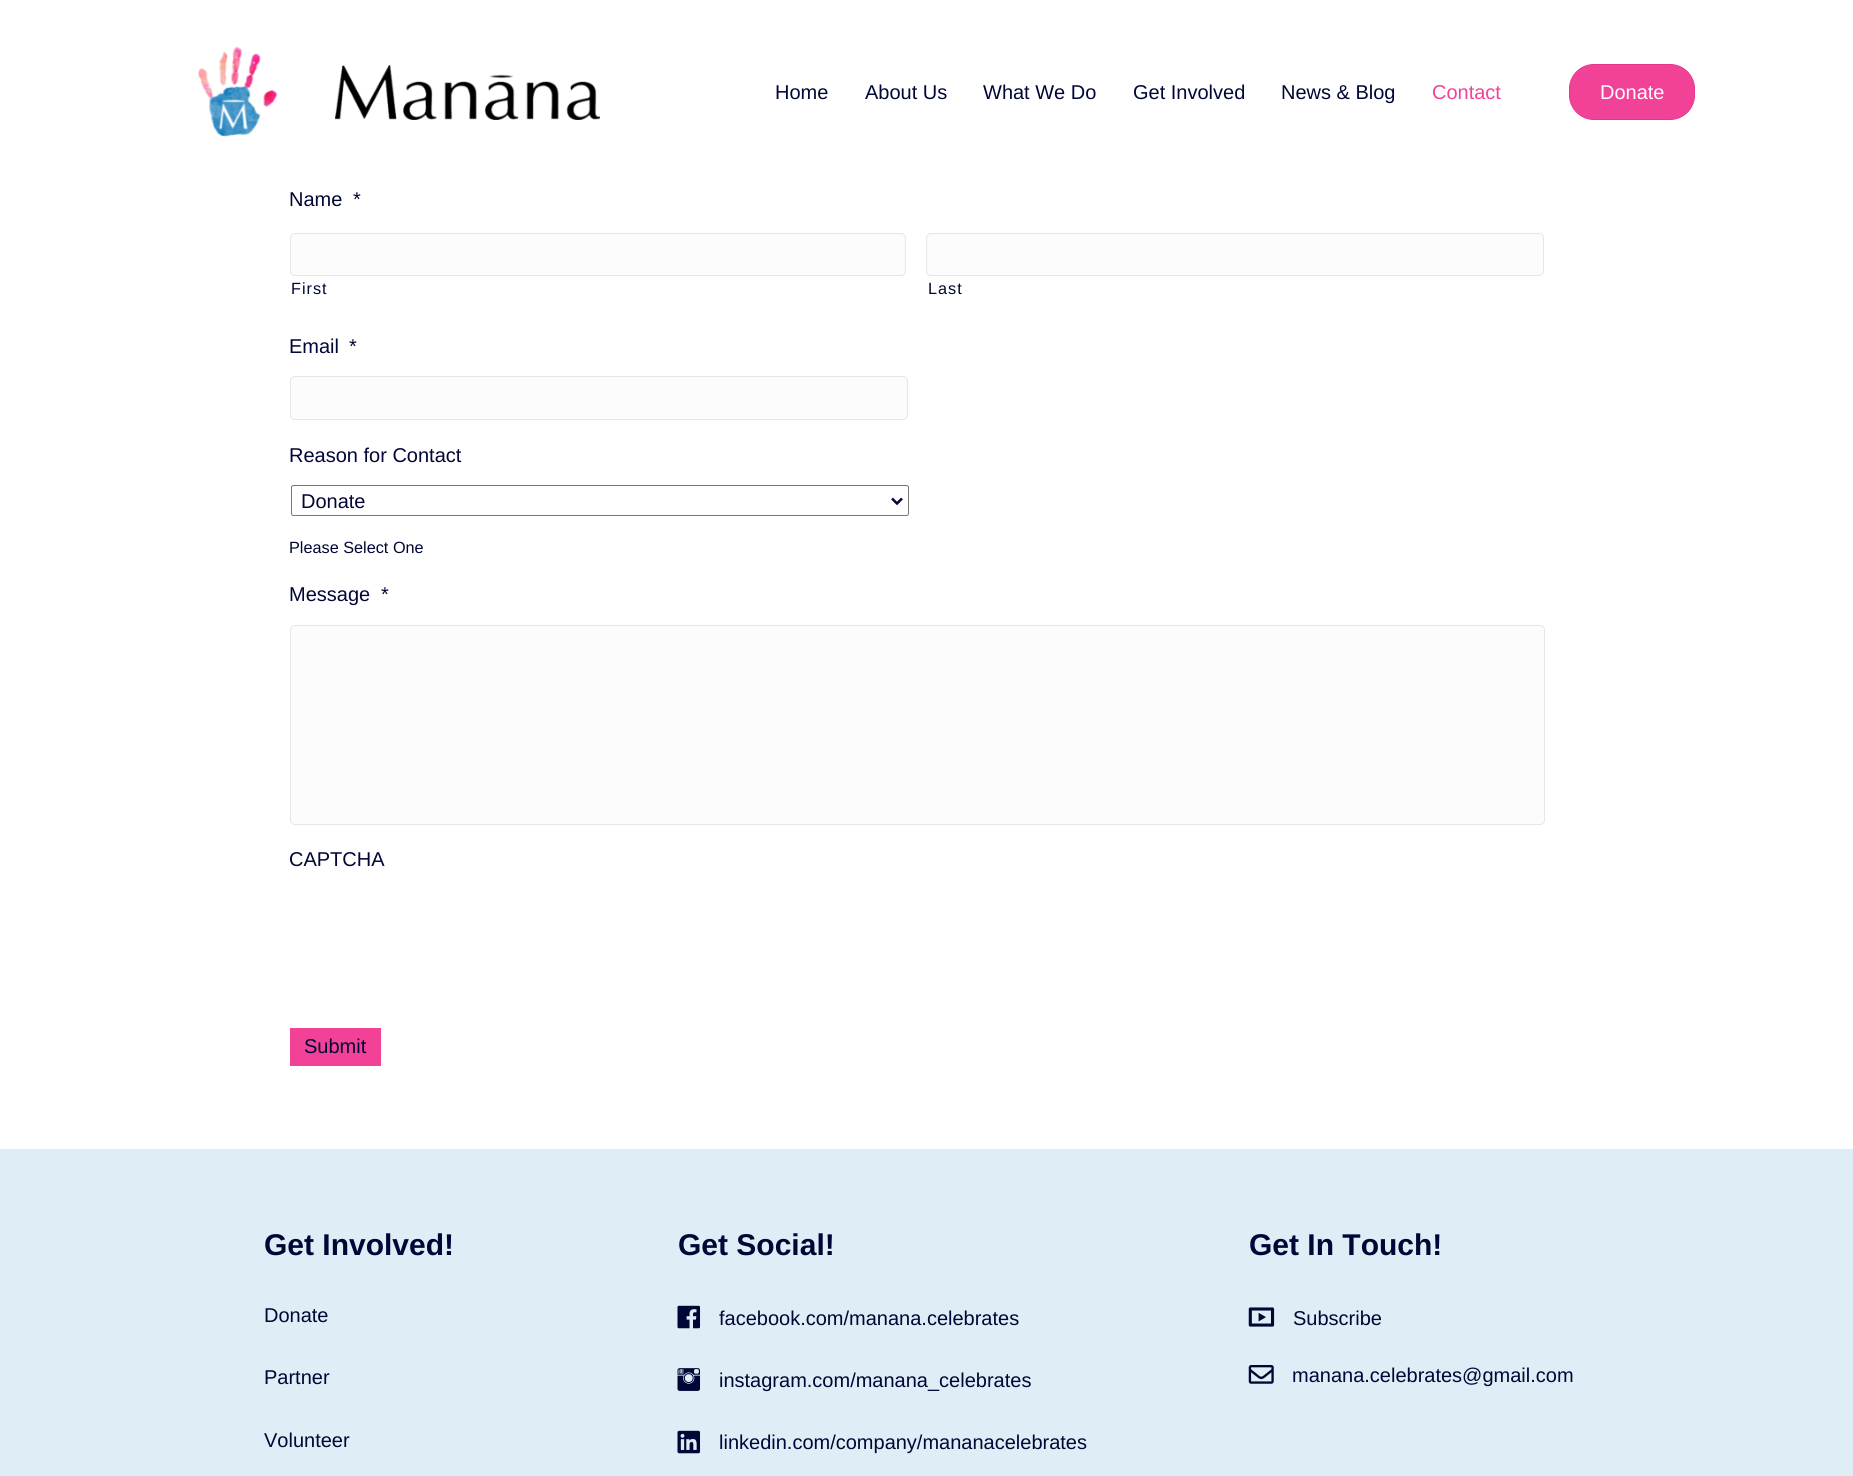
import math
import cairo



def draw_spaced(context, x, y, s, letter, word):
    context.move_to(x, y)
    for ch in s:
        context.show_text(ch)
        context.rel_move_to(letter + word * (ch == ' '), 0)


def rounded_rect(context, x, y, w, h, r):
    context.new_sub_path()
    for i, (u, v) in enumerate([(x + w - r, y + h - r), (x + r, y + h - r), (x + r, y + r), (x + w - r, y + r)]):
        context.arc(u, v, r, i * math.pi / 2, (i + 1) * math.pi / 2)
    context.close_path()


def draw_image(context, path, x, y, w, h):
    context.save()
    context.set_source_surface(cairo.ImageSurface.create_from_png(path), x, y)
    context.rectangle(x, y, w, h)
    context.fill()
    context.restore()


def draw(context):
    context.set_source_rgb(1, 1, 1)
    context.paint()
    draw_image(context, "images/1.png", 198, 46, 80, 91)
    draw_image(context, "images/2.png", 335, 65, 265, 55)
    context.set_source_rgb(241 / 255, 66 / 255, 151 / 255)
    rounded_rect(context, 1569.5, 64.5, 125, 55, 24.5)
    context.fill_preserve()
    context.set_source_rgb(229 / 255, 54 / 255, 139 / 255)
    context.set_line_width(1)
    context.stroke()
    context.set_source_rgb(252 / 255, 252 / 255, 252 / 255)
    rounded_rect(context, 290.5, 233.5, 615, 42, 4.5)
    context.fill_preserve()
    context.set_source_rgb(230 / 255, 230 / 255, 230 / 255)
    context.stroke()
    context.set_source_rgb(252 / 255, 252 / 255, 252 / 255)
    rounded_rect(context, 926.5, 233.5, 617, 42, 4.5)
    context.fill_preserve()
    context.set_source_rgb(230 / 255, 230 / 255, 230 / 255)
    context.stroke()
    context.set_source_rgb(252 / 255, 252 / 255, 252 / 255)
    rounded_rect(context, 290.5, 376.5, 617, 43, 4.5)
    context.fill_preserve()
    context.set_source_rgb(230 / 255, 230 / 255, 230 / 255)
    context.stroke()
    rounded_rect(context, 291.5, 485.5, 617, 30, 2)
    context.set_source_rgb(118 / 255, 118 / 255, 118 / 255)
    context.stroke()
    context.new_path()
    context.move_to(892, 498.5)
    context.line_to(897, 503.5)
    context.line_to(902, 498.5)
    context.set_source_rgb(0, 6 / 255, 53 / 255)
    context.set_line_width(2.5)
    context.stroke()
    context.set_source_rgb(252 / 255, 252 / 255, 252 / 255)
    rounded_rect(context, 290.5, 625.5, 1254, 199, 4.5)
    context.fill_preserve()
    context.set_source_rgb(230 / 255, 230 / 255, 230 / 255)
    context.set_line_width(1)
    context.stroke()
    context.set_source_rgb(241 / 255, 66 / 255, 151 / 255)
    context.rectangle(290, 1028, 91, 38)
    context.fill()
    context.set_source_rgb(223 / 255, 237 / 255, 246 / 255)
    context.rectangle(0, 1149, 1853, 327)
    context.fill()
    draw_image(context, "images/3.png", 677, 1305, 24, 24)
    draw_image(context, "images/4.png", 677, 1368, 24, 23)
    draw_image(context, "images/5.png", 677, 1430, 24, 24)
    draw_image(context, "images/6.png", 1248, 1307, 27, 20)
    draw_image(context, "images/7.png", 1248, 1365, 26, 19)
    context.select_font_face("Liberation Sans")
    context.set_font_size(20)
    context.set_source_rgb(0, 6 / 255, 53 / 255)
    context.move_to(775, 99)
    context.show_text("Home")
    context.move_to(865, 99)
    context.show_text("About Us")
    context.move_to(983, 99)
    context.show_text("What We Do")
    context.move_to(1133, 99)
    context.show_text("Get Involved")
    context.move_to(1281, 99)
    context.show_text("News & Blog")
    context.set_source_rgb(241 / 255, 66 / 255, 151 / 255)
    context.move_to(1432, 99)
    context.show_text("Contact")
    context.set_source_rgb(1, 1, 1)
    context.move_to(1600, 99)
    context.show_text("Donate")
    context.set_source_rgb(0, 6 / 255, 53 / 255)
    context.move_to(289, 206)
    context.show_text("Name")
    context.move_to(353, 206)
    context.show_text("*")
    context.set_font_size(16.25)
    draw_spaced(context, 291, 294, "First", 1, 0)
    draw_spaced(context, 928, 294, "Last", 1, 0)
    context.set_font_size(20)
    context.move_to(289, 353)
    context.show_text("Email")
    context.move_to(349, 353)
    context.show_text("*")
    context.move_to(289, 462)
    context.show_text("Reason for Contact")
    context.move_to(301, 508)
    context.show_text("Donate")
    context.set_font_size(16.25)
    context.move_to(289, 553)
    context.show_text("Please Select One")
    context.set_font_size(20)
    context.move_to(289, 601)
    context.show_text("Message")
    context.move_to(381, 601)
    context.show_text("*")
    context.move_to(289, 866)
    context.show_text("CAPTCHA")
    context.move_to(304, 1053)
    context.show_text("Submit")
    context.select_font_face("Liberation Sans", cairo.FontSlant.NORMAL, cairo.FontWeight.BOLD)
    context.set_font_size(30)
    context.move_to(264, 1255)
    context.show_text("Get Involved!")
    context.select_font_face("Liberation Sans")
    context.set_font_size(20)
    context.move_to(264, 1322)
    context.show_text("Donate")
    context.move_to(264, 1384)
    context.show_text("Partner")
    context.move_to(264, 1447)
    context.show_text("Volunteer")
    context.select_font_face("Liberation Sans", cairo.FontSlant.NORMAL, cairo.FontWeight.BOLD)
    context.set_font_size(30)
    context.move_to(678, 1255)
    context.show_text("Get Social!")
    context.select_font_face("Liberation Sans")
    context.set_font_size(20)
    context.move_to(719, 1325)
    context.show_text("facebook.com/manana.celebrates")
    context.move_to(719, 1387)
    context.show_text("instagram.com/manana_celebrates")
    context.move_to(719, 1449)
    context.show_text("linkedin.com/company/mananacelebrates")
    context.select_font_face("Liberation Sans", cairo.FontSlant.NORMAL, cairo.FontWeight.BOLD)
    context.set_font_size(30)
    context.move_to(1249, 1255)
    context.show_text("Get In Touch!")
    context.select_font_face("Liberation Sans")
    context.set_font_size(20)
    context.move_to(1293, 1325)
    context.show_text("Subscribe")
    context.move_to(1292, 1382)
    context.show_text("manana.celebrates@gmail.com")


surface = cairo.ImageSurface(cairo.Format.RGB24, 1853, 1476)
context = cairo.Context(surface)
options = cairo.FontOptions()
options.set_hint_metrics(cairo.HintMetrics.OFF)
options.set_hint_style(cairo.HintStyle.NONE)
context.set_font_options(options)
context.set_miter_limit(4)
draw(context)
surface.write_to_png("out.png")
